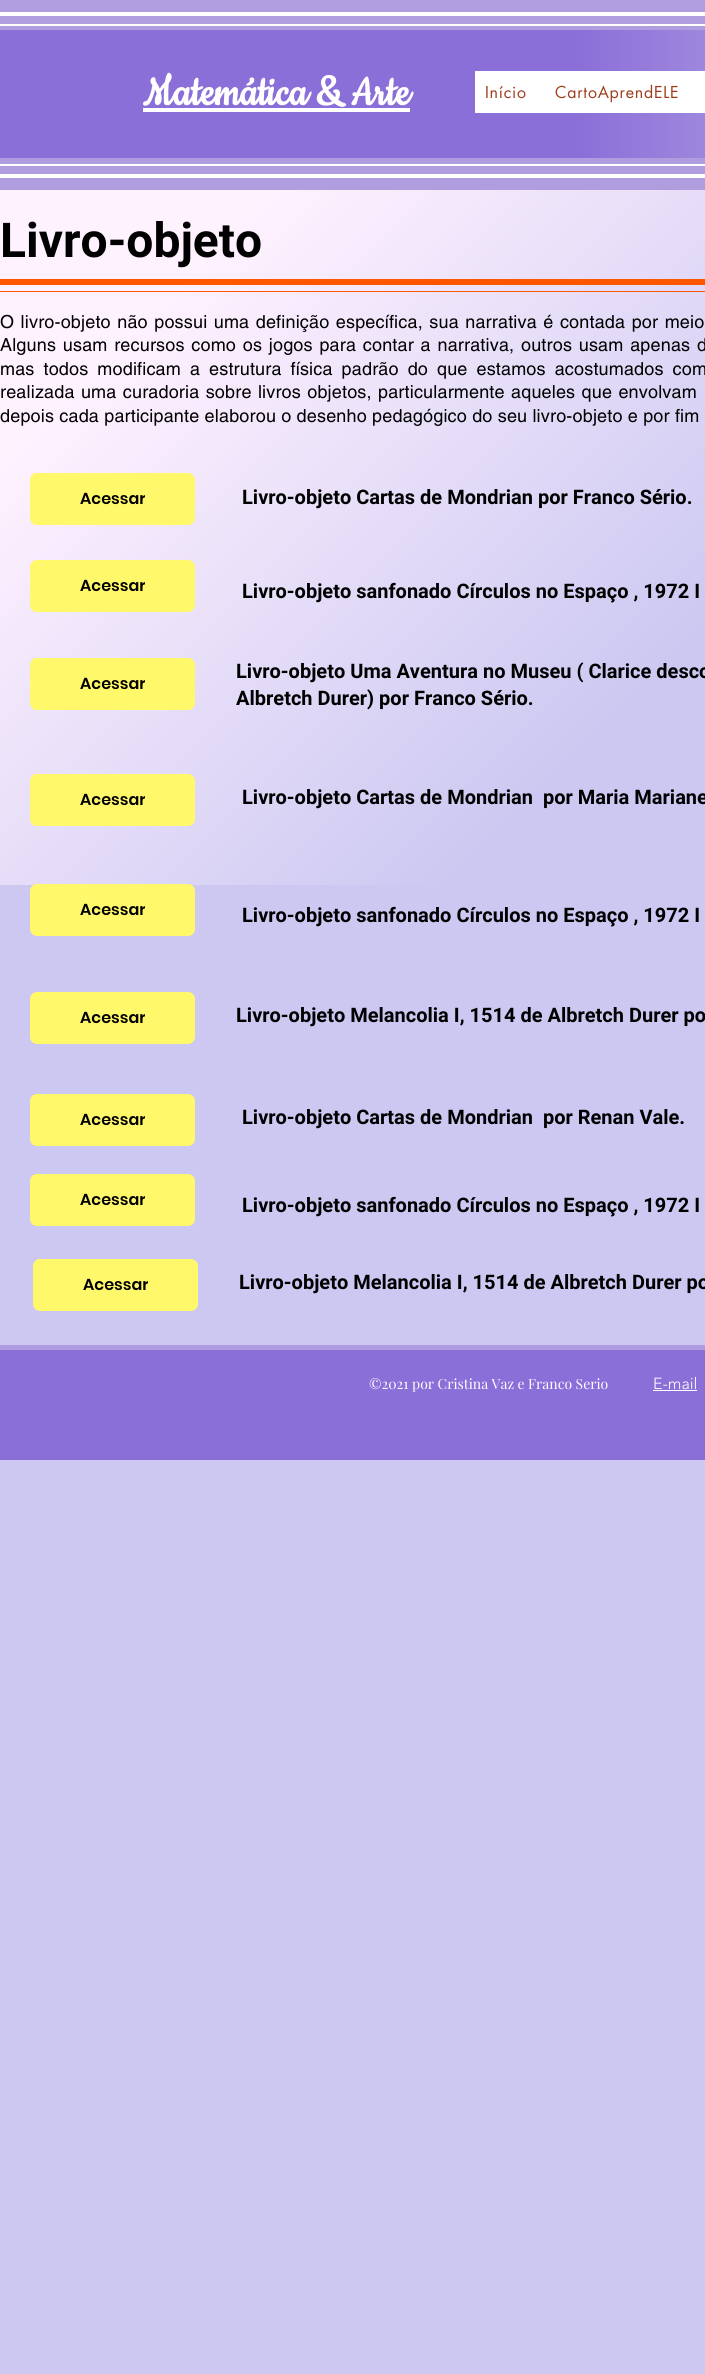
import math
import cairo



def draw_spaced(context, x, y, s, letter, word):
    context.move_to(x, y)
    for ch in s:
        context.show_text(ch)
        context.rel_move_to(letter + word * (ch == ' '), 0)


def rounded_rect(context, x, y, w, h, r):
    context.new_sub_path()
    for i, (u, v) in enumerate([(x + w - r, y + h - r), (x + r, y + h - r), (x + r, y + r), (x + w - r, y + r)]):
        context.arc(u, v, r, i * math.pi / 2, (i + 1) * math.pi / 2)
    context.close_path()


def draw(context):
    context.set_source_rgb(204 / 255, 200 / 255, 241 / 255)
    context.paint()
    context.set_source_rgb(175 / 255, 157 / 255, 224 / 255)
    context.rectangle(0, 0, 705, 190)
    context.fill()
    context.set_source_rgb(1, 1, 1)
    context.rectangle(0, 12, 705, 4)
    context.fill()
    context.rectangle(0, 174, 705, 4)
    context.fill()
    context.rectangle(0, 24, 705, 2)
    context.fill()
    context.rectangle(0, 164, 705, 2)
    context.fill()
    gradient = cairo.LinearGradient(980, 94, 0, 94)
    gradient.add_color_stop_rgba(0.16, 175 / 255, 157 / 255, 224 / 255, 1)
    gradient.add_color_stop_rgba(0.41, 139 / 255, 111 / 255, 217 / 255, 1)
    context.set_source(gradient)
    context.rectangle(0, 30, 705, 128)
    context.fill()
    context.set_source_rgb(1, 1, 1)
    context.rectangle(143, 108, 267, 4)
    context.fill()
    context.rectangle(475, 71, 230, 42)
    context.fill()
    gradient = cairo.LinearGradient(71, 119, 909, 956)
    gradient.add_color_stop_rgba(0.16, 1, 242 / 255, 1, 1)
    gradient.add_color_stop_rgba(0.68, 204 / 255, 200 / 255, 241 / 255, 1)
    context.set_source(gradient)
    context.rectangle(0, 190, 705, 695)
    context.fill()
    context.set_source_rgb(1, 87 / 255, 0)
    context.rectangle(0, 279, 705, 6)
    context.fill()
    context.rectangle(0, 291, 705, 1)
    context.fill()
    context.set_source_rgb(1, 248 / 255, 107 / 255)
    rounded_rect(context, 30, 473, 165, 52, 7)
    context.fill()
    rounded_rect(context, 30, 560, 165, 52, 7)
    context.fill()
    rounded_rect(context, 30, 658, 165, 52, 7)
    context.fill()
    rounded_rect(context, 30, 774, 165, 52, 7)
    context.fill()
    rounded_rect(context, 30, 884, 165, 52, 7)
    context.fill()
    rounded_rect(context, 30, 992, 165, 52, 7)
    context.fill()
    rounded_rect(context, 30, 1094, 165, 52, 7)
    context.fill()
    rounded_rect(context, 30, 1174, 165, 52, 7)
    context.fill()
    rounded_rect(context, 33, 1259, 165, 52, 7)
    context.fill()
    context.set_source_rgb(139 / 255, 111 / 255, 217 / 255)
    context.rectangle(0, 1350, 705, 110)
    context.fill()
    context.set_source_rgb(175 / 255, 157 / 255, 224 / 255)
    context.rectangle(0, 1345, 705, 5)
    context.fill()
    context.set_source_rgb(1, 1, 1)
    context.rectangle(653, 1390, 44, 1)
    context.fill()
    context.select_font_face("Cookie", cairo.FontSlant.NORMAL, cairo.FontWeight.BOLD)
    context.set_font_size(47)
    context.move_to(143, 105)
    context.show_text("Matemática & Arte")
    context.select_font_face("futura")
    context.set_font_size(16)
    context.set_source_rgb(158 / 255, 59 / 255, 27 / 255)
    draw_spaced(context, 485, 98, "Início", 0.75, 0)
    draw_spaced(context, 555, 98, "CartoAprendELE", 0.75, 0)
    context.select_font_face("Roboto", cairo.FontSlant.NORMAL, cairo.FontWeight.BOLD)
    context.set_font_size(48)
    context.set_source_rgb(0, 0, 0)
    context.move_to(0, 257)
    context.show_text("Livro-objeto")
    context.select_font_face("helvetica")
    context.set_font_size(18)
    draw_spaced(context, 0, 328, "O livro-objeto não possui uma definição específica, sua narrativa é contada por meio", 0.18, 1.25)
    draw_spaced(context, 0, 351, "Alguns usam recursos como os jogos para contar a narrativa, outros usam apenas d", 0.18, 1.5)
    draw_spaced(context, 0, 375, "mas todos modificam a estrutura física padrão do que estamos acostumados com", 0.18, 3.75)
    draw_spaced(context, 0, 398, "realizada uma curadoria sobre livros objetos, particularmente aqueles que envolvam", 0.18, 1.1)
    draw_spaced(context, 0, 422, "depois cada participante elaborou o desenho pedagógico do seu livro-objeto e por fim", 0.18, 0)
    context.save()
    context.rectangle(80, 486, 65, 25)
    context.clip()
    context.select_font_face("Poppins SemiBold")
    context.set_font_size(16)
    context.move_to(80, 504)
    context.show_text("Acessar")
    context.restore()
    context.select_font_face("Roboto", cairo.FontSlant.NORMAL, cairo.FontWeight.BOLD)
    context.set_font_size(20)
    context.move_to(242, 504)
    context.show_text("Livro-objeto Cartas de Mondrian por Franco Sério.")
    context.save()
    context.rectangle(80, 573, 65, 25)
    context.clip()
    context.select_font_face("Poppins SemiBold")
    context.set_font_size(16)
    context.move_to(80, 591)
    context.show_text("Acessar")
    context.restore()
    context.move_to(242, 598)
    context.show_text("Livro-objeto sanfonado Círculos no Espaço , 1972 I")
    context.save()
    context.rectangle(80, 671, 65, 25)
    context.clip()
    context.select_font_face("Poppins SemiBold")
    context.set_font_size(16)
    context.move_to(80, 689)
    context.show_text("Acessar")
    context.restore()
    context.move_to(236, 678)
    context.show_text("Livro-objeto Uma Aventura no Museu ( Clarice desco")
    context.move_to(236, 705)
    context.show_text("Albretch Durer) por Franco Sério.")
    context.save()
    context.rectangle(80, 787, 65, 25)
    context.clip()
    context.select_font_face("Poppins SemiBold")
    context.set_font_size(16)
    context.move_to(80, 805)
    context.show_text("Acessar")
    context.restore()
    context.move_to(242, 804)
    context.show_text("Livro-objeto Cartas de Mondrian  por Maria Mariane")
    context.move_to(242, 922)
    context.show_text("Livro-objeto sanfonado Círculos no Espaço , 1972 I")
    context.save()
    context.rectangle(80, 897, 65, 25)
    context.clip()
    context.select_font_face("Poppins SemiBold")
    context.set_font_size(16)
    context.move_to(80, 915)
    context.show_text("Acessar")
    context.restore()
    context.save()
    context.rectangle(80, 1005, 65, 25)
    context.clip()
    context.select_font_face("Poppins SemiBold")
    context.set_font_size(16)
    context.move_to(80, 1023)
    context.show_text("Acessar")
    context.restore()
    context.move_to(236, 1022)
    context.show_text("Livro-objeto Melancolia I, 1514 de Albretch Durer po")
    context.save()
    context.rectangle(80, 1107, 65, 25)
    context.clip()
    context.select_font_face("Poppins SemiBold")
    context.set_font_size(16)
    context.move_to(80, 1125)
    context.show_text("Acessar")
    context.restore()
    context.move_to(242, 1124)
    context.show_text("Livro-objeto Cartas de Mondrian  por Renan Vale.")
    context.save()
    context.rectangle(80, 1187, 65, 25)
    context.clip()
    context.select_font_face("Poppins SemiBold")
    context.set_font_size(16)
    context.move_to(80, 1205)
    context.show_text("Acessar")
    context.restore()
    context.move_to(242, 1212)
    context.show_text("Livro-objeto sanfonado Círculos no Espaço , 1972 I")
    context.save()
    context.rectangle(83, 1272, 65, 25)
    context.clip()
    context.select_font_face("Poppins SemiBold")
    context.set_font_size(16)
    context.move_to(83, 1290)
    context.show_text("Acessar")
    context.restore()
    context.move_to(239, 1289)
    context.show_text("Livro-objeto Melancolia I, 1514 de Albretch Durer po")
    context.select_font_face("Playfair Display")
    context.set_font_size(14)
    context.set_source_rgb(1, 1, 1)
    context.move_to(369, 1389)
    context.show_text("©2021 por Cristina Vaz e Franco Serio")
    context.select_font_face("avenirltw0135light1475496 Light")
    context.set_font_size(16)
    context.move_to(653, 1389)
    context.show_text("E-mail")


surface = cairo.ImageSurface(cairo.Format.RGB24, 705, 2374)
context = cairo.Context(surface)
options = cairo.FontOptions()
options.set_hint_metrics(cairo.HintMetrics.OFF)
options.set_hint_style(cairo.HintStyle.NONE)
context.set_font_options(options)
context.set_miter_limit(4)
draw(context)
surface.write_to_png("out.png")
